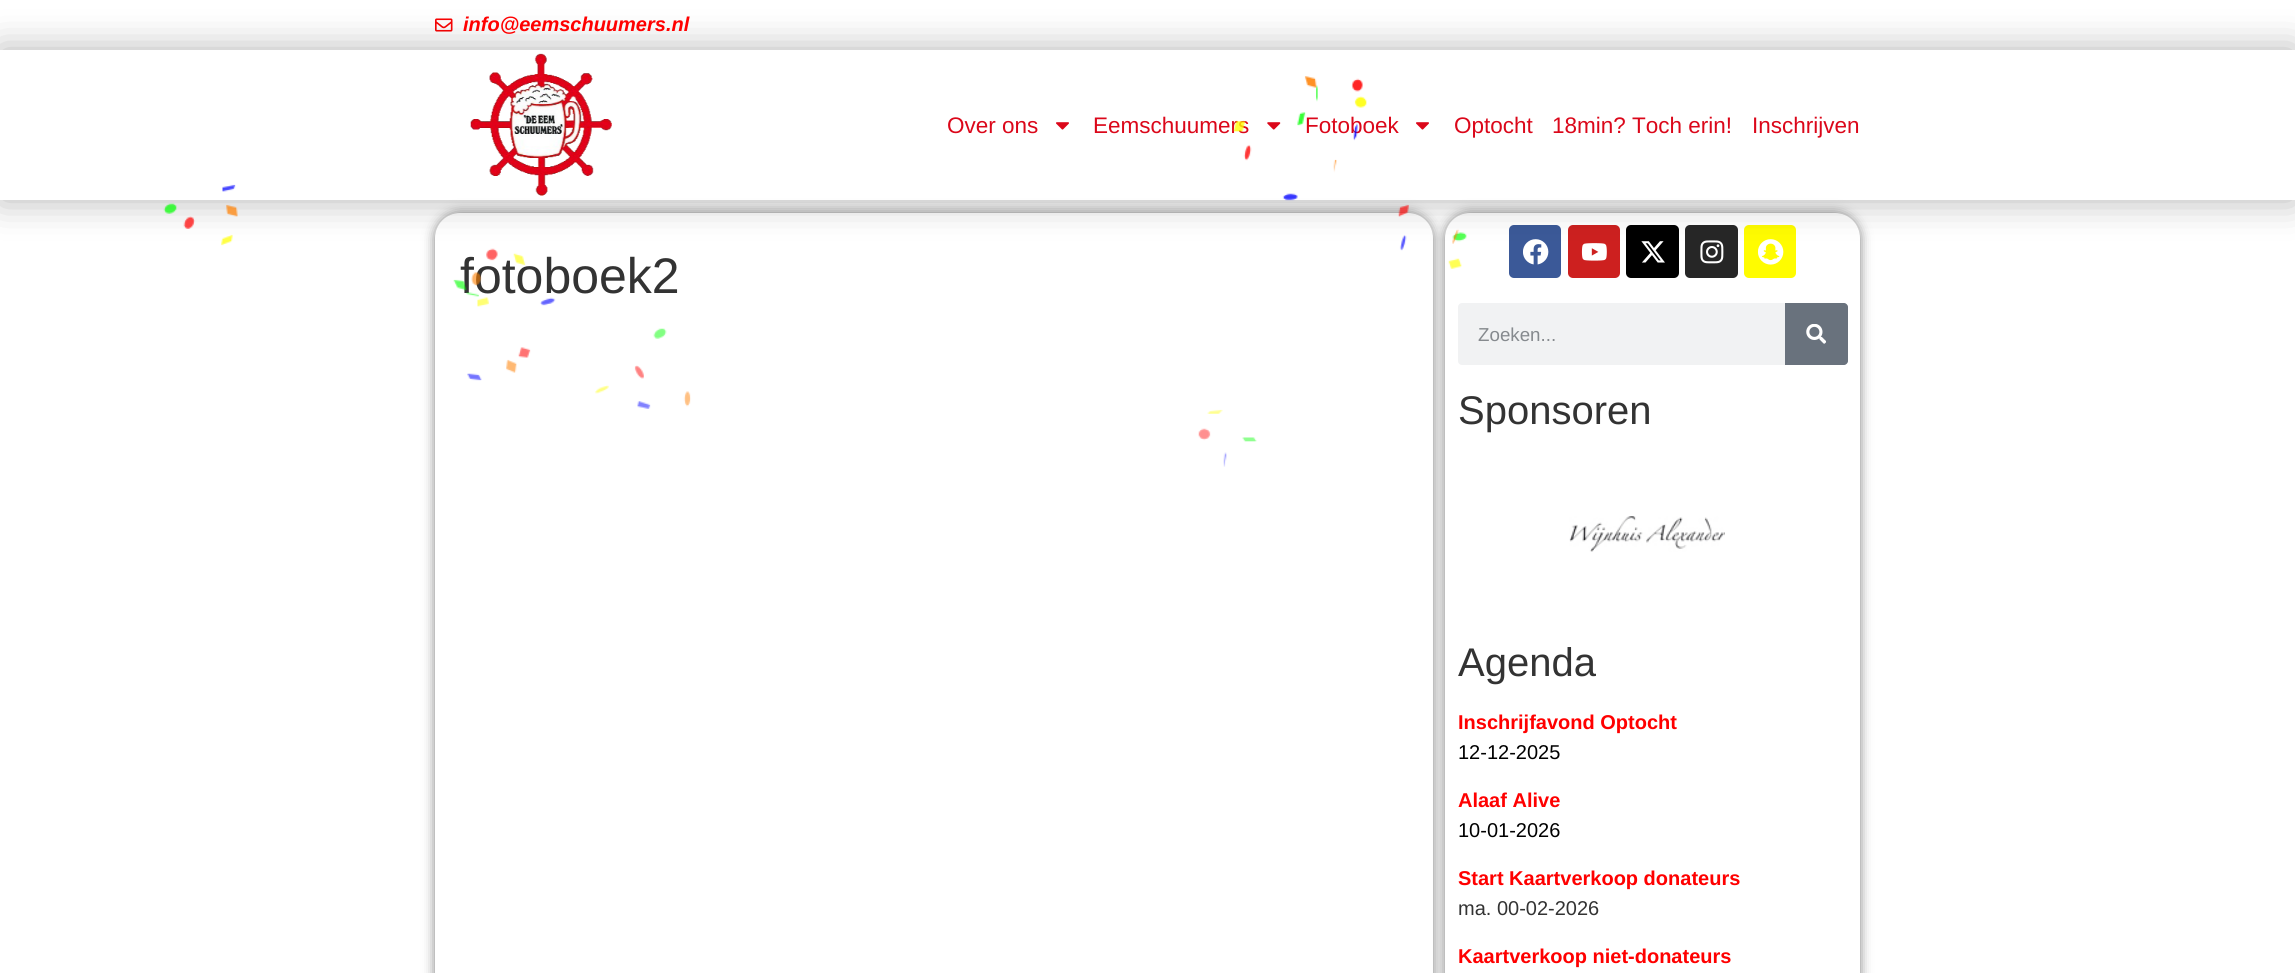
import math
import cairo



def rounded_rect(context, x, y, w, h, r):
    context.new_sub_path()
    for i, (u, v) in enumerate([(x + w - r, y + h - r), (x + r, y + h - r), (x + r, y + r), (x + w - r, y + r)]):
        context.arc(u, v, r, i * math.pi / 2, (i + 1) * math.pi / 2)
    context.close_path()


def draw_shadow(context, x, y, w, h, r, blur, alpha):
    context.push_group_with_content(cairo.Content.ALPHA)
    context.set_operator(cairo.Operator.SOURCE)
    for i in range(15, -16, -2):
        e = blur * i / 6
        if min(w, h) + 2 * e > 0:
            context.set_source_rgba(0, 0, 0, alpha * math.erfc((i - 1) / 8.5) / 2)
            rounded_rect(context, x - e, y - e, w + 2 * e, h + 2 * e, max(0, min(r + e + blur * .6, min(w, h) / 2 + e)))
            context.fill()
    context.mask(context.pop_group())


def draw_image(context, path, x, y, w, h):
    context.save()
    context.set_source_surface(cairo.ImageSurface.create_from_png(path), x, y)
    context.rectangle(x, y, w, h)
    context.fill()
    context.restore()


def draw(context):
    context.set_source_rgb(1, 1, 1)
    context.paint()
    draw_image(context, "images/1.png", 435, 18, 18, 14)
    context.set_source_rgb(0, 0, 0)
    draw_shadow(context, 435, 213, 998, 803, 25, 6, 0.5)
    context.set_source_rgb(1, 1, 1)
    rounded_rect(context, 435, 213, 998, 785, 25)
    context.fill()
    context.set_source_rgb(0, 0, 0)
    draw_shadow(context, 1445, 213, 415, 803, 25, 6, 0.5)
    context.set_source_rgb(1, 1, 1)
    rounded_rect(context, 1445, 213, 415, 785, 25)
    context.fill()
    context.set_source_rgb(59 / 255, 89 / 255, 152 / 255)
    rounded_rect(context, 1509, 225, 52, 53, 5)
    context.fill()
    draw_image(context, "images/6.png", 1523, 239, 26, 26)
    context.set_source_rgb(205 / 255, 32 / 255, 31 / 255)
    rounded_rect(context, 1568, 225, 52, 53, 5)
    context.fill()
    draw_image(context, "images/7.png", 1581, 243, 26, 18)
    context.set_source_rgb(0, 0, 0)
    rounded_rect(context, 1626, 225, 53, 53, 5)
    context.fill()
    draw_image(context, "images/8.png", 1641, 241, 24, 22)
    context.set_source_rgb(38 / 255, 38 / 255, 38 / 255)
    rounded_rect(context, 1685, 225, 53, 53, 5)
    context.fill()
    draw_image(context, "images/9.png", 1700, 240, 24, 24)
    context.set_source_rgb(1, 252 / 255, 0)
    rounded_rect(context, 1744, 225, 52, 53, 5)
    context.fill()
    draw_image(context, "images/10.png", 1758, 239, 26, 26)
    context.save()
    context.set_fill_rule(cairo.FillRule.EVEN_ODD)
    context.new_path()
    context.move_to(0, 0)
    context.line_to(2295, 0)
    context.line_to(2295, 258)
    context.line_to(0, 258)
    context.close_path()
    context.move_to(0, 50)
    context.line_to(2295, 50)
    context.line_to(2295, 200)
    context.line_to(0, 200)
    context.close_path()
    context.clip()
    context.set_source_rgb(0, 0, 0)
    draw_shadow(context, 0, 50, 2295, 150, 0, 19, 0.3)
    context.restore()
    draw_image(context, "images/2.png", 470, 53, 142, 143)
    draw_image(context, "images/3.png", 1056, 122, 13, 8)
    draw_image(context, "images/4.png", 1267, 122, 14, 8)
    draw_image(context, "images/3.png", 1416, 122, 13, 8)
    context.set_source_rgb(241 / 255, 242 / 255, 243 / 255)
    rounded_rect(context, 1458, 303, 390, 62, 4)
    context.fill()
    context.set_source_rgb(105 / 255, 114 / 255, 125 / 255)
    context.new_path()
    context.move_to(1785, 303)
    context.line_to(1844, 303)
    context.curve_to(1846, 303, 1848, 305, 1848, 307)
    context.line_to(1848, 361)
    context.curve_to(1848, 363, 1846, 365, 1844, 365)
    context.line_to(1785, 365)
    context.close_path()
    context.fill()
    draw_image(context, "images/11.png", 1806, 324, 20, 20)
    draw_image(context, "images/12.png", 1569, 516, 156, 36)
    context.select_font_face("Liberation Sans", cairo.FontSlant.ITALIC, cairo.FontWeight.BOLD)
    context.set_font_size(20)
    context.set_source_rgb(1, 0, 0)
    context.move_to(463, 31)
    context.show_text("info@eemschuumers.nl")
    context.select_font_face("Liberation Sans")
    context.set_font_size(22.5)
    context.set_source_rgb(219 / 255, 7 / 255, 26 / 255)
    context.move_to(947, 133)
    context.show_text("Over ons")
    context.move_to(1093, 133)
    context.show_text("Eemschuumers")
    context.move_to(1305, 133)
    context.show_text("Fotoboek")
    context.move_to(1454, 133)
    context.show_text("Optocht")
    context.move_to(1552, 133)
    context.show_text("18min? Toch erin!")
    context.move_to(1752, 133)
    context.show_text("Inschrijven")
    context.set_font_size(50)
    context.set_source_rgb(51 / 255, 51 / 255, 51 / 255)
    context.move_to(460, 293)
    context.show_text("fotoboek2")
    context.set_font_size(18.75)
    context.set_source_rgb(134 / 255, 138 / 255, 142 / 255)
    context.move_to(1478, 341)
    context.show_text("Zoeken...")
    context.set_font_size(40)
    context.set_source_rgb(51 / 255, 51 / 255, 51 / 255)
    context.move_to(1458, 424)
    context.show_text("Sponsoren")
    draw_image(context, "images/5.png", 163, 76, 1304, 391)
    context.move_to(1458, 676)
    context.show_text("Agenda")
    context.select_font_face("Liberation Sans", cairo.FontSlant.NORMAL, cairo.FontWeight.BOLD)
    context.set_font_size(20)
    context.set_source_rgb(1, 0, 0)
    context.move_to(1458, 729)
    context.show_text("Inschrijfavond Optocht")
    context.select_font_face("Liberation Sans")
    context.set_source_rgb(0, 0, 0)
    context.move_to(1458, 759)
    context.show_text("12-12-2025")
    context.select_font_face("Liberation Sans", cairo.FontSlant.NORMAL, cairo.FontWeight.BOLD)
    context.set_source_rgb(1, 0, 0)
    context.move_to(1458, 807)
    context.show_text("Alaaf Alive")
    context.select_font_face("Liberation Sans")
    context.set_source_rgb(0, 0, 0)
    context.move_to(1458, 837)
    context.show_text("10-01-2026")
    context.select_font_face("Liberation Sans", cairo.FontSlant.NORMAL, cairo.FontWeight.BOLD)
    context.set_source_rgb(1, 0, 0)
    context.move_to(1458, 885)
    context.show_text("Start Kaartverkoop donateurs")
    context.select_font_face("Liberation Sans")
    context.set_source_rgb(51 / 255, 51 / 255, 51 / 255)
    context.move_to(1458, 915)
    context.show_text("ma. 00-02-2026")
    context.select_font_face("Liberation Sans", cairo.FontSlant.NORMAL, cairo.FontWeight.BOLD)
    context.set_source_rgb(1, 0, 0)
    context.move_to(1458, 963)
    context.show_text("Kaartverkoop niet-donateurs")


surface = cairo.ImageSurface(cairo.Format.RGB24, 2295, 973)
context = cairo.Context(surface)
options = cairo.FontOptions()
options.set_hint_metrics(cairo.HintMetrics.OFF)
options.set_hint_style(cairo.HintStyle.NONE)
context.set_font_options(options)
context.set_miter_limit(4)
draw(context)
surface.write_to_png("out.png")
